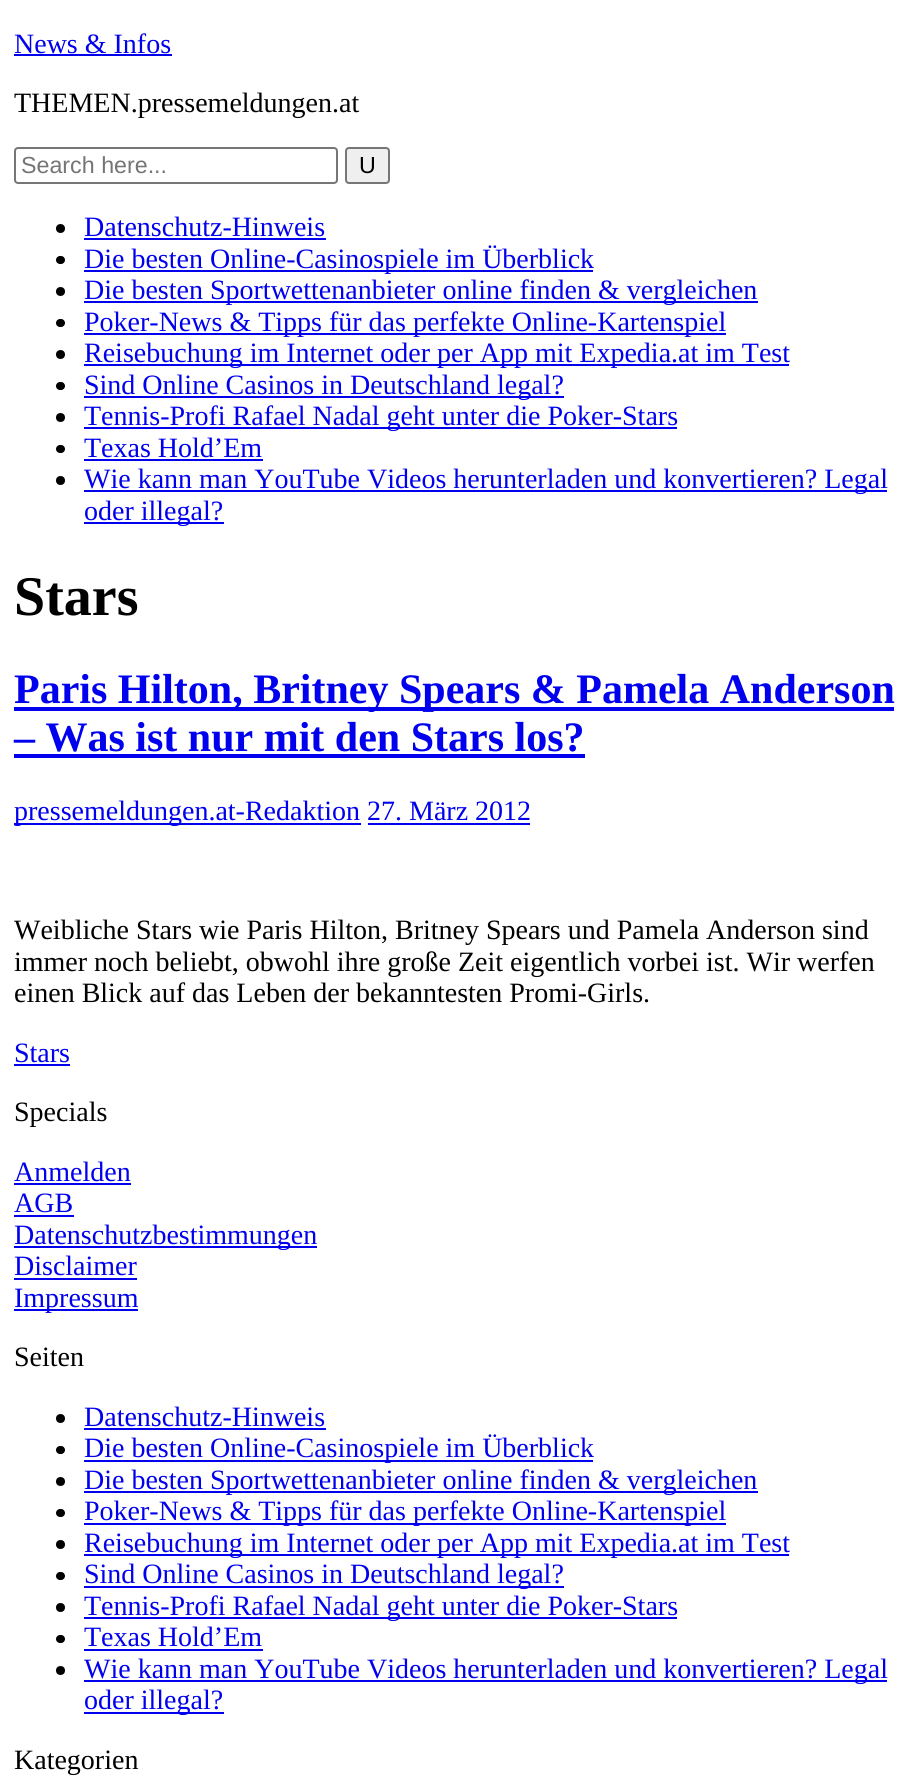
import math
import cairo



def rounded_rect(context, x, y, w, h, r):
    context.new_sub_path()
    for i, (u, v) in enumerate([(x + w - r, y + h - r), (x + r, y + h - r), (x + r, y + r), (x + w - r, y + r)]):
        context.arc(u, v, r, i * math.pi / 2, (i + 1) * math.pi / 2)
    context.close_path()


def draw(context):
    context.set_source_rgb(1, 1, 1)
    context.paint()
    context.set_source_rgb(0, 0, 238 / 255)
    context.rectangle(14, 54, 158, 2)
    context.fill()
    rounded_rect(context, 15, 148, 322, 35, 3)
    context.set_source_rgb(118 / 255, 118 / 255, 118 / 255)
    context.stroke()
    context.set_source_rgb(239 / 255, 239 / 255, 239 / 255)
    rounded_rect(context, 346, 148, 43, 35, 3)
    context.fill_preserve()
    context.set_source_rgb(118 / 255, 118 / 255, 118 / 255)
    context.stroke()
    context.set_source_rgb(0, 0, 0)
    context.arc(60.5, 228.5, 4.5, 0, 2 * math.pi)
    context.fill()
    context.set_source_rgb(0, 0, 238 / 255)
    context.rectangle(84, 238, 242, 2)
    context.fill()
    context.set_source_rgb(0, 0, 0)
    rounded_rect(context, 56, 256, 9, 8, 4)
    context.fill()
    context.set_source_rgb(0, 0, 238 / 255)
    context.rectangle(84, 270, 509, 2)
    context.fill()
    context.set_source_rgb(0, 0, 0)
    context.arc(60.5, 291.5, 4.5, 0, 2 * math.pi)
    context.fill()
    context.set_source_rgb(0, 0, 238 / 255)
    context.rectangle(84, 301, 674, 2)
    context.fill()
    context.set_source_rgb(0, 0, 0)
    rounded_rect(context, 56, 319, 9, 8, 4)
    context.fill()
    context.set_source_rgb(0, 0, 238 / 255)
    context.rectangle(84, 333, 642, 2)
    context.fill()
    context.set_source_rgb(0, 0, 0)
    context.arc(60.5, 354.5, 4.5, 0, 2 * math.pi)
    context.fill()
    context.set_source_rgb(0, 0, 238 / 255)
    context.rectangle(84, 364, 705, 2)
    context.fill()
    context.set_source_rgb(0, 0, 0)
    rounded_rect(context, 56, 382, 9, 8, 4)
    context.fill()
    context.set_source_rgb(0, 0, 238 / 255)
    context.rectangle(84, 396, 480, 2)
    context.fill()
    context.set_source_rgb(0, 0, 0)
    context.arc(60.5, 417.5, 4.5, 0, 2 * math.pi)
    context.fill()
    context.set_source_rgb(0, 0, 238 / 255)
    context.rectangle(84, 427, 593, 2)
    context.fill()
    context.set_source_rgb(0, 0, 0)
    rounded_rect(context, 56, 445, 9, 8, 4)
    context.fill()
    context.set_source_rgb(0, 0, 238 / 255)
    context.rectangle(84, 459, 179, 2)
    context.fill()
    context.set_source_rgb(0, 0, 0)
    context.arc(60.5, 480.5, 4.5, 0, 2 * math.pi)
    context.fill()
    context.set_source_rgb(0, 0, 238 / 255)
    context.rectangle(84, 490, 803, 2)
    context.fill()
    context.rectangle(84, 522, 140, 2)
    context.fill()
    context.rectangle(14, 707, 880, 4)
    context.fill()
    context.rectangle(14, 754, 571, 4)
    context.fill()
    context.rectangle(14, 823, 347, 2)
    context.fill()
    context.rectangle(368, 823, 162, 2)
    context.fill()
    context.rectangle(14, 1064, 56, 2)
    context.fill()
    context.rectangle(14, 1183, 117, 2)
    context.fill()
    context.rectangle(14, 1215, 60, 2)
    context.fill()
    context.rectangle(14, 1246, 303, 2)
    context.fill()
    context.rectangle(14, 1278, 123, 2)
    context.fill()
    context.rectangle(14, 1309, 124, 2)
    context.fill()
    context.set_source_rgb(0, 0, 0)
    context.arc(60.5, 1418.5, 4.5, 0, 2 * math.pi)
    context.fill()
    context.set_source_rgb(0, 0, 238 / 255)
    context.rectangle(84, 1428, 242, 2)
    context.fill()
    context.set_source_rgb(0, 0, 0)
    rounded_rect(context, 56, 1446, 9, 8, 4)
    context.fill()
    context.set_source_rgb(0, 0, 238 / 255)
    context.rectangle(84, 1460, 509, 2)
    context.fill()
    context.set_source_rgb(0, 0, 0)
    context.arc(60.5, 1481.5, 4.5, 0, 2 * math.pi)
    context.fill()
    context.set_source_rgb(0, 0, 238 / 255)
    context.rectangle(84, 1491, 674, 2)
    context.fill()
    context.set_source_rgb(0, 0, 0)
    rounded_rect(context, 56, 1509, 9, 8, 4)
    context.fill()
    context.set_source_rgb(0, 0, 238 / 255)
    context.rectangle(84, 1523, 642, 2)
    context.fill()
    context.set_source_rgb(0, 0, 0)
    context.arc(60.5, 1544.5, 4.5, 0, 2 * math.pi)
    context.fill()
    context.set_source_rgb(0, 0, 238 / 255)
    context.rectangle(84, 1554, 705, 2)
    context.fill()
    context.set_source_rgb(0, 0, 0)
    rounded_rect(context, 56, 1572, 9, 8, 4)
    context.fill()
    context.set_source_rgb(0, 0, 238 / 255)
    context.rectangle(84, 1586, 480, 2)
    context.fill()
    context.set_source_rgb(0, 0, 0)
    context.arc(60.5, 1607.5, 4.5, 0, 2 * math.pi)
    context.fill()
    context.set_source_rgb(0, 0, 238 / 255)
    context.rectangle(84, 1617, 593, 2)
    context.fill()
    context.set_source_rgb(0, 0, 0)
    rounded_rect(context, 56, 1635, 9, 8, 4)
    context.fill()
    context.set_source_rgb(0, 0, 238 / 255)
    context.rectangle(84, 1649, 179, 2)
    context.fill()
    context.set_source_rgb(0, 0, 0)
    context.arc(60.5, 1670.5, 4.5, 0, 2 * math.pi)
    context.fill()
    context.set_source_rgb(0, 0, 238 / 255)
    context.rectangle(84, 1680, 803, 2)
    context.fill()
    context.rectangle(84, 1712, 140, 2)
    context.fill()
    context.select_font_face("Liberation Serif")
    context.set_font_size(28)
    context.move_to(14, 53)
    context.show_text("News & Infos")
    context.set_source_rgb(0, 0, 0)
    context.move_to(14, 112)
    context.show_text("THEMEN.pressemeldungen.at")
    context.select_font_face("Liberation Sans")
    context.set_font_size(23.25)
    context.set_source_rgb(117 / 255, 117 / 255, 117 / 255)
    context.move_to(21, 173)
    context.show_text("Search here...")
    context.set_source_rgb(0, 0, 0)
    context.move_to(359, 173)
    context.show_text("U")
    context.select_font_face("Liberation Serif")
    context.set_font_size(28)
    context.set_source_rgb(0, 0, 238 / 255)
    context.move_to(84, 236)
    context.show_text("Datenschutz-Hinweis")
    context.move_to(84, 268)
    context.show_text("Die besten Online-Casinospiele im Überblick")
    context.move_to(84, 299)
    context.show_text("Die besten Sportwettenanbieter online finden & vergleichen")
    context.move_to(84, 331)
    context.show_text("Poker-News & Tipps für das perfekte Online-Kartenspiel")
    context.move_to(84, 362)
    context.show_text("Reisebuchung im Internet oder per App mit Expedia.at im Test")
    context.move_to(84, 394)
    context.show_text("Sind Online Casinos in Deutschland legal?")
    context.move_to(84, 425)
    context.show_text("Tennis-Profi Rafael Nadal geht unter die Poker-Stars")
    context.move_to(84, 457)
    context.show_text("Texas Hold’Em")
    context.move_to(84, 488)
    context.show_text("Wie kann man YouTube Videos herunterladen und konvertieren? Legal")
    context.move_to(84, 520)
    context.show_text("oder illegal?")
    context.select_font_face("Liberation Serif", cairo.FontSlant.NORMAL, cairo.FontWeight.BOLD)
    context.set_font_size(56)
    context.set_source_rgb(0, 0, 0)
    context.move_to(14, 615)
    context.show_text("Stars")
    context.set_font_size(42)
    context.set_source_rgb(0, 0, 238 / 255)
    context.move_to(14, 703)
    context.show_text("Paris Hilton, Britney Spears & Pamela Anderson")
    context.move_to(14, 751)
    context.show_text("– Was ist nur mit den Stars los?")
    context.select_font_face("Liberation Serif")
    context.set_font_size(28)
    context.move_to(14, 820)
    context.show_text("pressemeldungen.at-Redaktion 27. März 2012")
    context.set_source_rgb(0, 0, 0)
    context.move_to(14, 939)
    context.show_text("Weibliche Stars wie Paris Hilton, Britney Spears und Pamela Anderson sind")
    context.move_to(14, 971)
    context.show_text("immer noch beliebt, obwohl ihre große Zeit eigentlich vorbei ist. Wir werfen")
    context.move_to(14, 1002)
    context.show_text("einen Blick auf das Leben der bekanntesten Promi-Girls.")
    context.set_source_rgb(0, 0, 238 / 255)
    context.move_to(14, 1062)
    context.show_text("Stars")
    context.set_source_rgb(0, 0, 0)
    context.move_to(14, 1121)
    context.show_text("Specials")
    context.set_source_rgb(0, 0, 238 / 255)
    context.move_to(14, 1181)
    context.show_text("Anmelden")
    context.move_to(14, 1212)
    context.show_text("AGB")
    context.move_to(14, 1244)
    context.show_text("Datenschutzbestimmungen")
    context.move_to(14, 1275)
    context.show_text("Disclaimer")
    context.move_to(14, 1307)
    context.show_text("Impressum")
    context.set_source_rgb(0, 0, 0)
    context.move_to(14, 1366)
    context.show_text("Seiten")
    context.set_source_rgb(0, 0, 238 / 255)
    context.move_to(84, 1426)
    context.show_text("Datenschutz-Hinweis")
    context.move_to(84, 1457)
    context.show_text("Die besten Online-Casinospiele im Überblick")
    context.move_to(84, 1489)
    context.show_text("Die besten Sportwettenanbieter online finden & vergleichen")
    context.move_to(84, 1520)
    context.show_text("Poker-News & Tipps für das perfekte Online-Kartenspiel")
    context.move_to(84, 1552)
    context.show_text("Reisebuchung im Internet oder per App mit Expedia.at im Test")
    context.move_to(84, 1583)
    context.show_text("Sind Online Casinos in Deutschland legal?")
    context.move_to(84, 1615)
    context.show_text("Tennis-Profi Rafael Nadal geht unter die Poker-Stars")
    context.move_to(84, 1646)
    context.show_text("Texas Hold’Em")
    context.move_to(84, 1678)
    context.show_text("Wie kann man YouTube Videos herunterladen und konvertieren? Legal")
    context.move_to(84, 1709)
    context.show_text("oder illegal?")
    context.set_source_rgb(0, 0, 0)
    context.move_to(14, 1769)
    context.show_text("Kategorien")


surface = cairo.ImageSurface(cairo.Format.RGB24, 910, 1789)
context = cairo.Context(surface)
options = cairo.FontOptions()
options.set_hint_metrics(cairo.HintMetrics.OFF)
options.set_hint_style(cairo.HintStyle.NONE)
context.set_font_options(options)
context.set_miter_limit(4)
draw(context)
surface.write_to_png("out.png")
